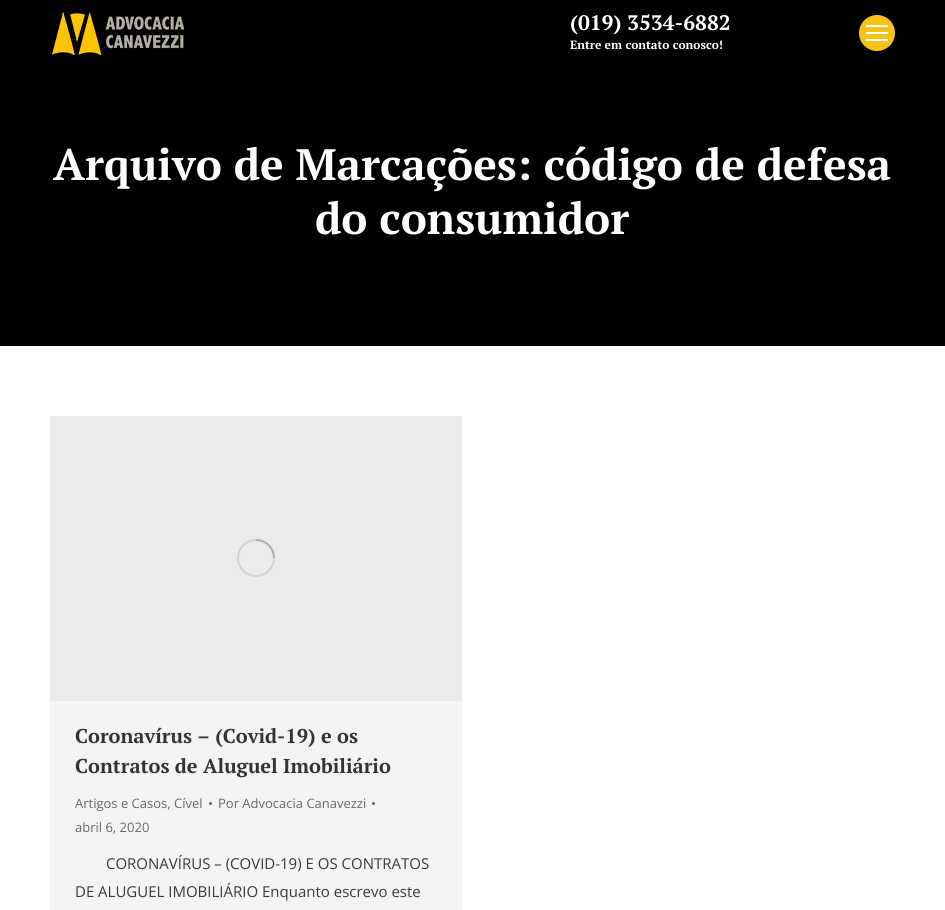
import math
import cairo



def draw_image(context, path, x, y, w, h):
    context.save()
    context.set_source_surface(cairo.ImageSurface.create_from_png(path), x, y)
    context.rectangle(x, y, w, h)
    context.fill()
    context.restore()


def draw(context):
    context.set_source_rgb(1, 1, 1)
    context.paint()
    context.set_source_rgb(0, 0, 0)
    context.rectangle(0, 0, 945, 346)
    context.fill()
    draw_image(context, "images/1.png", 52, 12, 132, 43)
    context.set_source_rgb(245 / 255, 195 / 255, 23 / 255)
    context.arc(877, 33, 18, 0, 2 * math.pi)
    context.fill()
    context.set_source_rgb(1, 1, 1)
    context.rectangle(866, 25, 22, 2)
    context.fill()
    context.rectangle(866, 32, 22, 2)
    context.fill()
    context.rectangle(866, 39, 22, 2)
    context.fill()
    context.set_source_rgb(244 / 255, 244 / 255, 244 / 255)
    context.rectangle(50, 701, 412, 209)
    context.fill()
    context.set_source_rgb(235 / 255, 235 / 255, 235 / 255)
    context.rectangle(50, 416, 412, 285)
    context.fill()
    context.arc(256, 558, 18, 0, 2 * math.pi)
    context.set_source_rgb(211 / 255, 211 / 255, 211 / 255)
    context.stroke()
    context.new_path()
    context.move_to(274, 558)
    context.curve_to(274, 548, 266, 540, 256, 540)
    context.set_source_rgba(58 / 255, 58 / 255, 58 / 255, 0.25)
    context.stroke()
    context.set_source_rgb(104 / 255, 104 / 255, 104 / 255)
    context.arc(210.5, 803.5, 1.5, 0, 2 * math.pi)
    context.fill()
    context.arc(373.5, 803.5, 1.5, 0, 2 * math.pi)
    context.fill()
    context.select_font_face("PT Serif", cairo.FontSlant.NORMAL, cairo.FontWeight.BOLD)
    context.set_font_size(21)
    context.set_source_rgb(1, 1, 1)
    context.move_to(570, 30)
    context.show_text("(019) 3534-6882")
    context.set_font_size(12)
    context.move_to(570, 49)
    context.show_text("Entre em contato conosco!")
    context.set_font_size(44)
    context.move_to(53, 180)
    context.show_text("Arquivo de Marcações: código de defesa")
    context.move_to(315, 234)
    context.show_text("do consumidor")
    context.set_font_size(20)
    context.set_source_rgb(51 / 255, 51 / 255, 51 / 255)
    context.move_to(75, 743)
    context.show_text("Coronavírus – (Covid-19) e os")
    context.move_to(75, 773)
    context.show_text("Contratos de Aluguel Imobiliário")
    context.select_font_face("Open Sans")
    context.set_font_size(13)
    context.set_source_rgb(104 / 255, 104 / 255, 104 / 255)
    context.move_to(75, 808)
    context.show_text("Artigos e Casos, Cível")
    context.move_to(218, 808)
    context.show_text("Por Advocacia Canavezzi")
    context.move_to(75, 832)
    context.show_text("abril 6, 2020")
    context.set_font_size(15)
    context.set_source_rgb(58 / 255, 58 / 255, 58 / 255)
    context.move_to(106, 869)
    context.show_text("CORONAVÍRUS – (COVID-19) E OS CONTRATOS")
    context.move_to(75, 897)
    context.show_text("DE ALUGUEL IMOBILIÁRIO Enquanto escrevo este")


surface = cairo.ImageSurface(cairo.Format.RGB24, 945, 910)
context = cairo.Context(surface)
options = cairo.FontOptions()
options.set_hint_metrics(cairo.HintMetrics.OFF)
options.set_hint_style(cairo.HintStyle.NONE)
context.set_font_options(options)
context.set_miter_limit(4)
draw(context)
surface.write_to_png("out.png")
